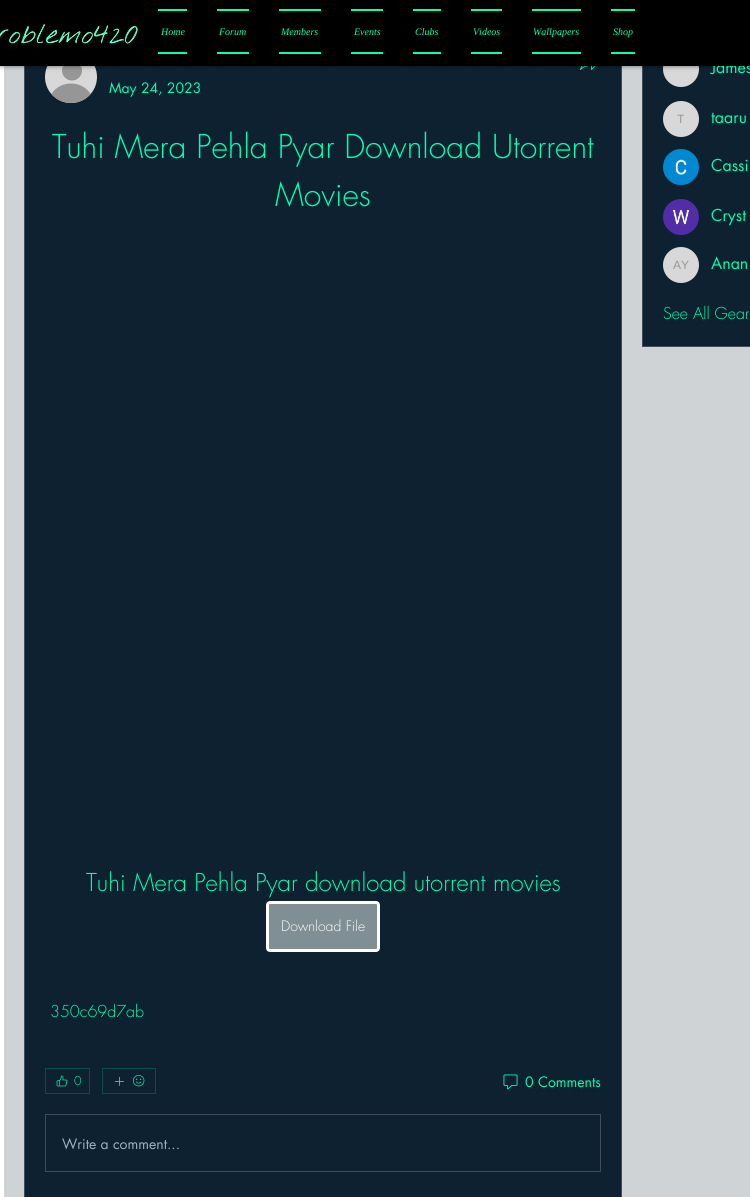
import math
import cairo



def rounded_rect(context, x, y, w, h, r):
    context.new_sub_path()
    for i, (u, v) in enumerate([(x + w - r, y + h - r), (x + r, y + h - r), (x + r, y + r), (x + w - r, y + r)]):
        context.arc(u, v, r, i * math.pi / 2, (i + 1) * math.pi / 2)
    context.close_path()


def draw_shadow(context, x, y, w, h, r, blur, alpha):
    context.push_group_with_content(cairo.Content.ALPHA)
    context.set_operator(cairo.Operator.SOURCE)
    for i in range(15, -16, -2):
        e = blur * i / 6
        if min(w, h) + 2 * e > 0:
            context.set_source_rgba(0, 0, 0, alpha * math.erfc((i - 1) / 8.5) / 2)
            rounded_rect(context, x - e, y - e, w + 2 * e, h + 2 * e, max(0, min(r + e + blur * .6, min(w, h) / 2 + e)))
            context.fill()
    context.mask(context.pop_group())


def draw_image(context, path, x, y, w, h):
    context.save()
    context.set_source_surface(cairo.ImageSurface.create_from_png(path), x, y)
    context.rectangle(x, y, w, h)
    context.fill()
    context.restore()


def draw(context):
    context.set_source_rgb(1, 1, 1)
    context.paint()
    context.set_source_rgb(207 / 255, 211 / 255, 214 / 255)
    context.rectangle(4, 66, 746, 1131)
    context.fill()
    context.set_source_rgb(13 / 255, 33 / 255, 48 / 255)
    context.rectangle(25, 66, 596, 1131)
    context.fill()
    context.rectangle(24.5, 30.5, 597, 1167)
    context.set_source_rgb(61 / 255, 77 / 255, 89 / 255)
    context.set_line_width(1)
    context.stroke()
    context.set_source_rgb(216 / 255, 216 / 255, 216 / 255)
    context.arc(71, 77, 26, 0, 2 * math.pi)
    context.fill()
    context.set_source_rgb(150 / 255, 150 / 255, 150 / 255)
    context.arc(72, 70.5, 10, 0, 2 * math.pi)
    context.fill()
    draw_image(context, "images/2.png", 580, 66, 16, 4)
    context.set_source_rgb(13 / 255, 33 / 255, 48 / 255)
    context.rectangle(643, 66, 107, 280)
    context.fill()
    context.rectangle(642.5, -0.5, 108, 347)
    context.set_source_rgb(61 / 255, 77 / 255, 89 / 255)
    context.stroke()
    context.set_source_rgb(216 / 255, 216 / 255, 216 / 255)
    context.arc(681, 69, 18, 0, 2 * math.pi)
    context.fill()
    context.set_source_rgb(0, 0, 0)
    draw_shadow(context, 0, 0, 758, 66, 0, 2.5, 0.5)
    context.set_source_rgb(150 / 255, 150 / 255, 150 / 255)
    context.new_path()
    context.move_to(90.5, 94)
    context.curve_to(80.5, 106, 61.5, 106, 51.5, 94)
    context.curve_to(60, 80, 82, 80, 90.5, 94)
    context.close_path()
    context.fill()
    context.set_source_rgb(128 / 255, 143 / 255, 149 / 255)
    rounded_rect(context, 267.5, 902.5, 111, 48, 2.5)
    context.fill_preserve()
    context.set_source_rgb(1, 1, 1)
    context.set_line_width(3)
    context.stroke()
    context.rectangle(45.5, 1068.5, 44, 25)
    context.set_source_rgb(10 / 255, 77 / 255, 74 / 255)
    context.set_line_width(1)
    context.stroke()
    draw_image(context, "images/3.png", 56, 1075, 12, 12)
    context.rectangle(102.5, 1068.5, 53, 25)
    context.stroke()
    draw_image(context, "images/4.png", 115, 1077, 9, 9)
    draw_image(context, "images/5.png", 133, 1075, 12, 12)
    draw_image(context, "images/6.png", 503, 1074, 15, 16)
    context.rectangle(45.5, 1114.5, 555, 57)
    context.set_source_rgb(61 / 255, 77 / 255, 89 / 255)
    context.stroke()
    context.set_source_rgb(216 / 255, 216 / 255, 216 / 255)
    context.arc(681, 119, 18, 0, 2 * math.pi)
    context.fill()
    draw_image(context, "images/7.png", 663, 149, 36, 36)
    draw_image(context, "images/8.png", 663, 199, 36, 36)
    context.arc(681, 265, 18, 0, 2 * math.pi)
    context.fill()
    context.select_font_face("futura")
    context.set_font_size(14)
    context.set_source_rgb(0, 1, 177 / 255)
    context.move_to(109, 93)
    context.show_text("May 24, 2023")
    context.select_font_face("futura Light")
    context.set_font_size(32)
    context.move_to(52, 158)
    context.show_text("Tuhi Mera Pehla Pyar Download Utorrent")
    context.move_to(275, 206)
    context.show_text("Movies")
    context.set_font_size(24)
    context.move_to(86, 891)
    context.show_text("Tuhi Mera Pehla Pyar download utorrent movies")
    context.set_font_size(14)
    context.set_source_rgb(1, 1, 1)
    context.move_to(281, 931)
    context.show_text("Download File")
    context.set_font_size(16)
    context.set_source_rgb(0, 1, 177 / 255)
    context.move_to(50, 1017)
    context.show_text("350c69d7ab")
    context.set_font_size(12)
    context.move_to(74, 1085)
    context.show_text("0")
    context.select_font_face("futura")
    context.set_font_size(14)
    context.move_to(525, 1087)
    context.show_text("0 Comments")
    context.set_source_rgb(157 / 255, 177 / 255, 191 / 255)
    context.move_to(62, 1149)
    context.show_text("Write a comment...")
    context.set_font_size(16)
    context.set_source_rgb(0, 1, 177 / 255)
    context.move_to(711, 73)
    context.show_text("James")
    context.set_source_rgb(0, 0, 0)
    context.rectangle(0, 0, 750, 66)
    context.fill()
    context.select_font_face("Liberation Serif", cairo.FontSlant.ITALIC)
    context.set_font_size(10)
    context.set_source_rgb(0, 1, 177 / 255)
    context.move_to(613, 35)
    context.show_text("Shop")
    context.rectangle(611, 52, 24, 2)
    context.fill()
    context.rectangle(611, 9, 24, 2)
    context.fill()
    context.move_to(533, 35)
    context.show_text("Wallpapers")
    context.rectangle(532, 52, 49, 2)
    context.fill()
    context.rectangle(532, 9, 49, 2)
    context.fill()
    context.move_to(473, 35)
    context.show_text("Videos")
    context.rectangle(471, 52, 31, 2)
    context.fill()
    context.rectangle(471, 9, 31, 2)
    context.fill()
    context.move_to(415, 35)
    context.show_text("Clubs")
    context.rectangle(413, 52, 28, 2)
    context.fill()
    context.rectangle(413, 9, 28, 2)
    context.fill()
    context.move_to(354, 35)
    context.show_text("Events")
    context.rectangle(351, 52, 32, 2)
    context.fill()
    context.rectangle(351, 9, 32, 2)
    context.fill()
    context.move_to(281, 35)
    context.show_text("Members")
    context.rectangle(279, 52, 42, 2)
    context.fill()
    context.rectangle(279, 9, 42, 2)
    context.fill()
    context.move_to(219, 35)
    context.show_text("Forum")
    context.rectangle(217, 52, 32, 2)
    context.fill()
    context.rectangle(217, 9, 32, 2)
    context.fill()
    context.move_to(161, 35)
    context.show_text("Home")
    context.rectangle(158, 52, 29, 2)
    context.fill()
    context.rectangle(158, 9, 29, 2)
    context.fill()
    draw_image(context, "images/1.png", 0, 18, 142, 31)
    context.select_font_face("Liberation Sans")
    context.set_font_size(12)
    context.set_source_rgb(151 / 255, 151 / 255, 151 / 255)
    context.move_to(677, 123)
    context.show_text("T")
    context.select_font_face("futura")
    context.set_font_size(16)
    context.set_source_rgb(0, 1, 177 / 255)
    context.move_to(711, 123)
    context.show_text("taaru")
    context.move_to(711, 171)
    context.show_text("Cassi")
    context.move_to(711, 221)
    context.show_text("Cryst")
    context.select_font_face("Liberation Sans")
    context.set_font_size(12)
    context.set_source_rgb(151 / 255, 151 / 255, 151 / 255)
    context.move_to(673, 269)
    context.show_text("AY")
    context.select_font_face("futura")
    context.set_font_size(16)
    context.set_source_rgb(0, 1, 177 / 255)
    context.move_to(711, 269)
    context.show_text("Anan")
    context.select_font_face("futura Light")
    context.move_to(663, 319)
    context.show_text("See All Gear")


surface = cairo.ImageSurface(cairo.Format.RGB24, 750, 1197)
context = cairo.Context(surface)
options = cairo.FontOptions()
options.set_hint_metrics(cairo.HintMetrics.OFF)
options.set_hint_style(cairo.HintStyle.NONE)
context.set_font_options(options)
context.set_miter_limit(4)
draw(context)
surface.write_to_png("out.png")
